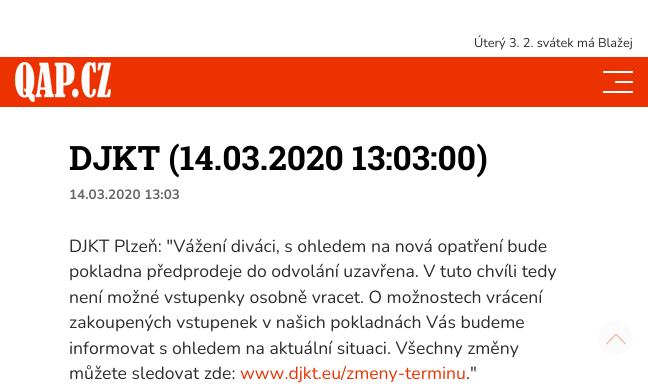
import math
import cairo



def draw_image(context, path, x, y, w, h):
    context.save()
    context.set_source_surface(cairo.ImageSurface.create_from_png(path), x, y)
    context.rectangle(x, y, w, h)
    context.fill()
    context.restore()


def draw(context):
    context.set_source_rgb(1, 1, 1)
    context.paint()
    context.set_source_rgb(235 / 255, 50 / 255, 0)
    context.rectangle(0, 57, 648, 50)
    context.fill()
    draw_image(context, "images/1.png", 15, 62, 96, 40)
    context.set_source_rgb(1, 1, 1)
    context.rectangle(603, 71, 30, 2)
    context.fill()
    context.rectangle(615, 81, 18, 2)
    context.fill()
    context.rectangle(603, 91, 30, 2)
    context.fill()
    context.set_source_rgb(251 / 255, 251 / 255, 251 / 255)
    context.arc(615.5, 338.5, 17.5, 0, 2 * math.pi)
    context.fill()
    draw_image(context, "images/2.png", 606, 333, 20, 12)
    context.select_font_face("Nunito")
    context.set_font_size(12.75)
    context.set_source_rgb(44 / 255, 44 / 255, 44 / 255)
    context.move_to(474, 47)
    context.show_text("Úterý 3. 2. svátek má Blažej")
    context.select_font_face("Roboto Slab", cairo.FontSlant.NORMAL, cairo.FontWeight.BOLD)
    context.set_font_size(33.6)
    context.set_source_rgb(0, 0, 0)
    context.move_to(69, 170)
    context.show_text("DJKT (14.03.2020 13:03:00)")
    context.select_font_face("Nunito", cairo.FontSlant.NORMAL, cairo.FontWeight.BOLD)
    context.set_font_size(13.5)
    context.set_source_rgb(102 / 255, 102 / 255, 102 / 255)
    context.move_to(69, 199)
    context.show_text("14.03.2020 13:03")
    context.select_font_face("Nunito")
    context.set_font_size(17.6)
    context.set_source_rgb(44 / 255, 44 / 255, 44 / 255)
    context.move_to(69, 252)
    context.show_text("DJKT Plzeň: \"Vážení diváci, s ohledem na nová opatření bude")
    context.move_to(69, 277)
    context.show_text("pokladna předprodeje do odvolání uzavřena. V tuto chvíli tedy")
    context.move_to(69, 303)
    context.show_text("není možné vstupenky osobně vracet. O možnostech vrácení")
    context.move_to(69, 328)
    context.show_text("zakoupených vstupenek v našich pokladnách Vás budeme")
    context.move_to(69, 354)
    context.show_text("informovat s ohledem na aktuální situaci. Všechny změny")
    context.move_to(69, 379)
    context.show_text("můžete sledovat zde:")
    context.set_source_rgb(235 / 255, 50 / 255, 0)
    context.move_to(240, 379)
    context.show_text("www.djkt.eu/zmeny-terminu")
    context.set_source_rgb(44 / 255, 44 / 255, 44 / 255)
    context.move_to(466, 379)
    context.show_text(".\"")


surface = cairo.ImageSurface(cairo.Format.RGB24, 648, 386)
context = cairo.Context(surface)
options = cairo.FontOptions()
options.set_hint_metrics(cairo.HintMetrics.OFF)
options.set_hint_style(cairo.HintStyle.NONE)
context.set_font_options(options)
context.set_miter_limit(4)
draw(context)
surface.write_to_png("out.png")
